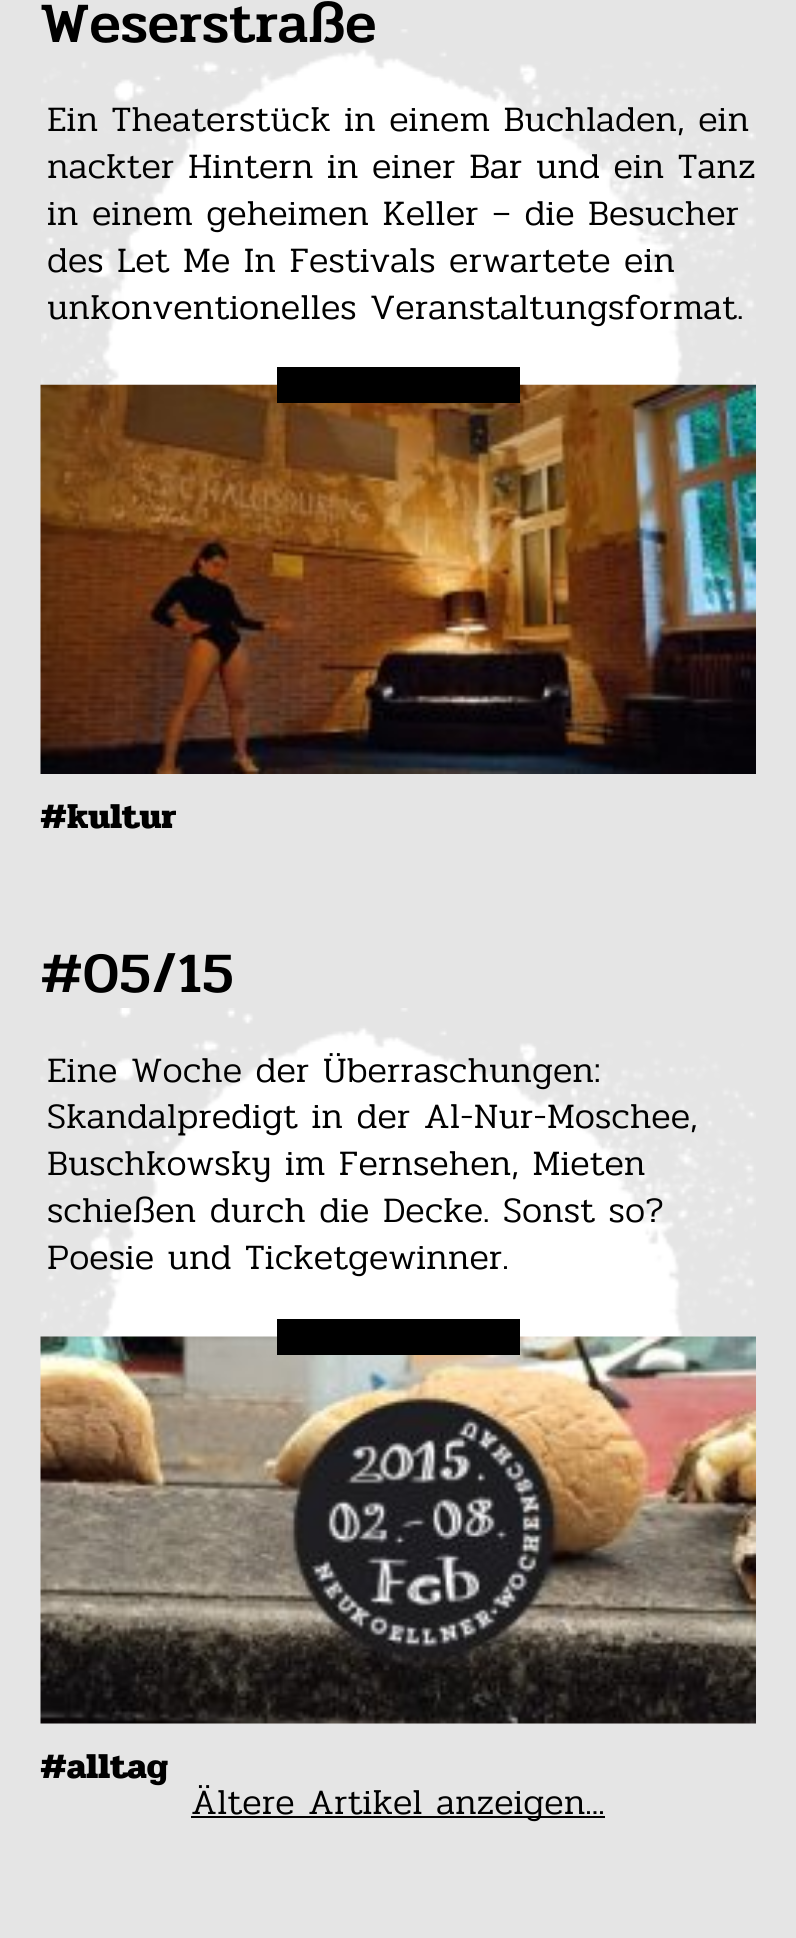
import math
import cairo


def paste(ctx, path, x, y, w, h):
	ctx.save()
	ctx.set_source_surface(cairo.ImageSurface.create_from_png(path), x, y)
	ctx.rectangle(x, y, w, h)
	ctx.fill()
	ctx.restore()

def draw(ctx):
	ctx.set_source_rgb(0.898, 0.898, 0.898)
	ctx.paint()
	paste(ctx, 'media/1.png', 41, 29, 715, 356)
	ctx.select_font_face('Pridi Medium')
	ctx.set_font_size(57.5)
	ctx.set_source_rgb(0, 0, 0)
	ctx.move_to(40, 42)
	ctx.show_text('Weserstraße')
	ctx.select_font_face('Pridi Light')
	ctx.set_font_size(36)
	for x, y, s in [
		(47, 131, 'Ein Theaterstück in einem Buchladen, ein'),
		(47, 178, 'nackter Hintern in einer Bar und ein Tanz'),
		(47, 225, 'in einem geheimen Keller – die Besucher'),
		(47, 272, 'des Let Me In Festivals erwartete ein'),
		(47, 319, 'unkonventionelles Veranstaltungsformat.'),
	]:
		ctx.move_to(x, y)
		ctx.show_text(s)
	paste(ctx, 'media/2.png', 40, 384, 716, 390)
	ctx.rectangle(277, 367, 243, 36)
	ctx.fill()
	ctx.select_font_face('Pridi', cairo.FONT_SLANT_NORMAL, cairo.FONT_WEIGHT_BOLD)
	ctx.move_to(40, 828)
	ctx.show_text('#kultur')
	paste(ctx, 'media/3.png', 40, 1008, 716, 653)
	ctx.select_font_face('Pridi Medium')
	ctx.set_font_size(57.5)
	ctx.move_to(40, 992)
	ctx.show_text('#05/15')
	ctx.select_font_face('Pridi Light')
	ctx.set_font_size(36)
	for x, y, s in [
		(47, 1082, 'Eine Woche der Überraschungen:'),
		(47, 1128, 'Skandalpredigt in der Al-Nur-Moschee,'),
		(47, 1175, 'Buschkowsky im Fernsehen, Mieten'),
		(47, 1222, 'schießen durch die Decke. Sonst so?'),
		(47, 1269, 'Poesie und Ticketgewinner.'),
	]:
		ctx.move_to(x, y)
		ctx.show_text(s)
	paste(ctx, 'media/4.png', 40, 1336, 716, 388)
	ctx.rectangle(277, 1319, 243, 36)
	ctx.fill()
	ctx.select_font_face('Pridi', cairo.FONT_SLANT_NORMAL, cairo.FONT_WEIGHT_BOLD)
	ctx.move_to(40, 1778)
	ctx.show_text('#alltag')
	ctx.rectangle(191, 1816, 414, 2)
	ctx.fill()
	ctx.select_font_face('Pridi Light')
	ctx.move_to(191, 1814)
	ctx.show_text('Ältere Artikel anzeigen...')


surface = cairo.ImageSurface(cairo.FORMAT_RGB24, 796, 1938)
ctx = cairo.Context(surface)
options = cairo.FontOptions()
options.set_hint_metrics(cairo.HINT_METRICS_OFF)
options.set_hint_style(cairo.HINT_STYLE_NONE)
ctx.set_font_options(options)
ctx.set_miter_limit(4)
draw(ctx)
surface.write_to_png('image.png')
